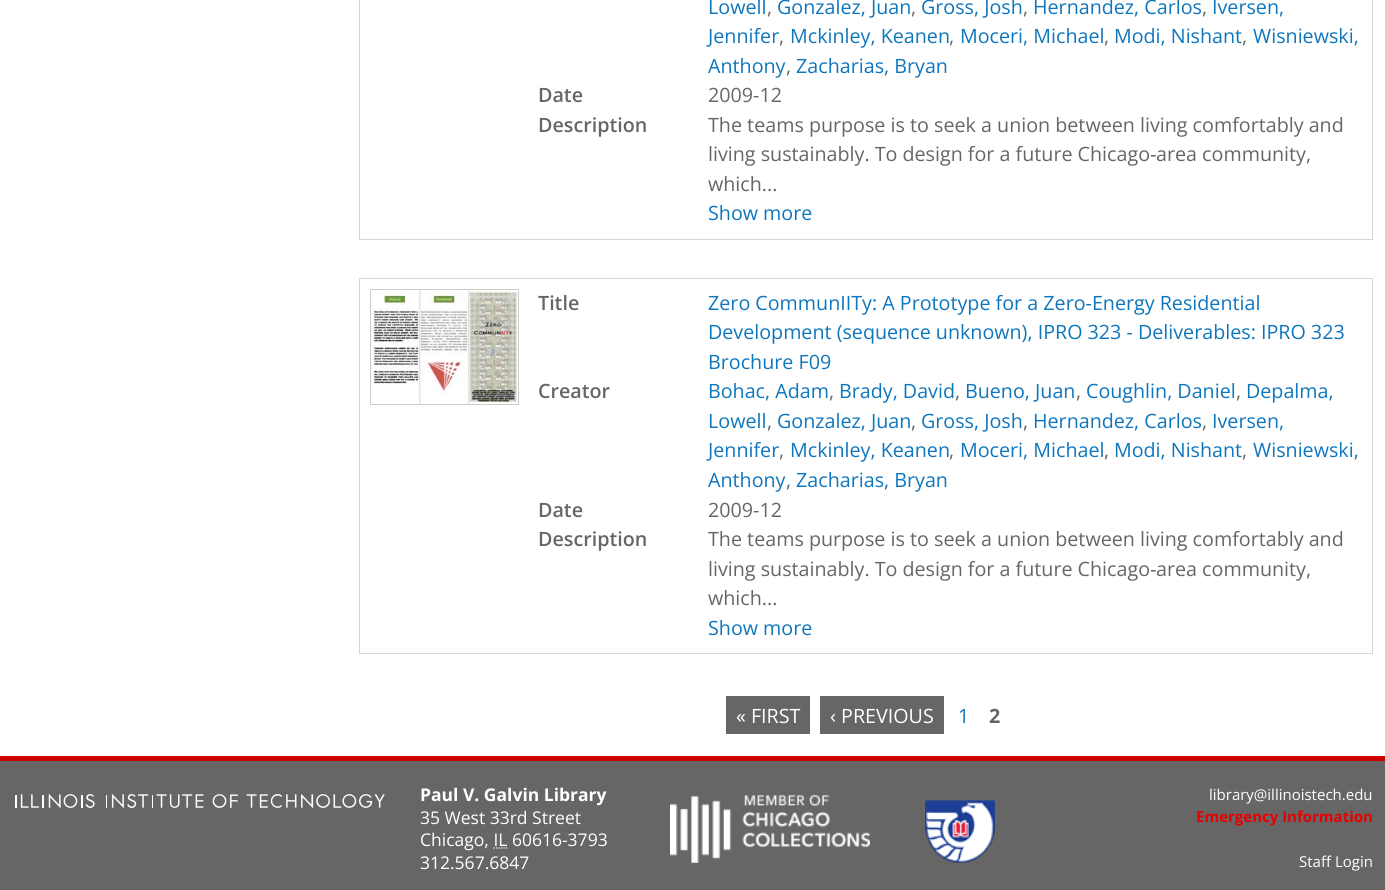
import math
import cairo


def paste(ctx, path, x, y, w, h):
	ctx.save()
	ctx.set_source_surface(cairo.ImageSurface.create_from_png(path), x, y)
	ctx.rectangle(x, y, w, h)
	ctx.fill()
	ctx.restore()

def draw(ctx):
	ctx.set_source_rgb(1, 1, 1)
	ctx.paint()
	ctx.rectangle(359.5, -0.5, 1013, 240)
	ctx.set_source_rgb(0.839, 0.839, 0.839)
	ctx.set_line_width(1)
	ctx.stroke()
	ctx.select_font_face('Open Sans')
	ctx.set_font_size(19.7)
	ctx.set_source_rgb(0.055, 0.463, 0.741)
	ctx.move_to(708, 14)
	ctx.show_text('Lowell')
	ctx.set_source_rgb(0.4, 0.4, 0.4)
	ctx.move_to(767, 14)
	ctx.show_text(',')
	ctx.set_source_rgb(0.055, 0.463, 0.741)
	ctx.move_to(777, 14)
	ctx.show_text('Gonzalez, Juan')
	ctx.set_source_rgb(0.4, 0.4, 0.4)
	ctx.move_to(911, 14)
	ctx.show_text(',')
	ctx.set_source_rgb(0.055, 0.463, 0.741)
	ctx.move_to(921, 14)
	ctx.show_text('Gross, Josh')
	ctx.set_source_rgb(0.4, 0.4, 0.4)
	ctx.move_to(1023, 14)
	ctx.show_text(',')
	ctx.set_source_rgb(0.055, 0.463, 0.741)
	ctx.move_to(1033, 14)
	ctx.show_text('Hernandez, Carlos')
	ctx.set_source_rgb(0.4, 0.4, 0.4)
	ctx.move_to(1202, 14)
	ctx.show_text(',')
	ctx.set_source_rgb(0.055, 0.463, 0.741)
	ctx.move_to(1212, 14)
	ctx.show_text('Iversen,')
	ctx.move_to(708, 43)
	ctx.show_text('Jennifer')
	ctx.set_source_rgb(0.4, 0.4, 0.4)
	ctx.move_to(779, 43)
	ctx.show_text(',')
	ctx.set_source_rgb(0.055, 0.463, 0.741)
	ctx.move_to(790, 43)
	ctx.show_text('Mckinley, Keanen')
	ctx.set_source_rgb(0.4, 0.4, 0.4)
	ctx.move_to(949, 43)
	ctx.show_text(',')
	ctx.set_source_rgb(0.055, 0.463, 0.741)
	ctx.move_to(960, 43)
	ctx.show_text('Moceri, Michael')
	ctx.set_source_rgb(0.4, 0.4, 0.4)
	ctx.move_to(1104, 43)
	ctx.show_text(',')
	ctx.set_source_rgb(0.055, 0.463, 0.741)
	ctx.move_to(1114, 43)
	ctx.show_text('Modi, Nishant')
	ctx.set_source_rgb(0.4, 0.4, 0.4)
	ctx.move_to(1242, 43)
	ctx.show_text(',')
	ctx.set_source_rgb(0.055, 0.463, 0.741)
	ctx.move_to(1253, 43)
	ctx.show_text('Wisniewski,')
	ctx.move_to(708, 73)
	ctx.show_text('Anthony')
	ctx.set_source_rgb(0.4, 0.4, 0.4)
	ctx.move_to(786, 73)
	ctx.show_text(',')
	ctx.set_source_rgb(0.055, 0.463, 0.741)
	ctx.move_to(796, 73)
	ctx.show_text('Zacharias, Bryan')
	ctx.select_font_face('Open Sans SemiBold')
	ctx.set_source_rgb(0.4, 0.4, 0.4)
	ctx.move_to(538, 102)
	ctx.show_text('Date')
	ctx.select_font_face('Open Sans')
	ctx.move_to(708, 102)
	ctx.show_text('2009-12')
	ctx.select_font_face('Open Sans SemiBold')
	ctx.move_to(538, 132)
	ctx.show_text('Description')
	ctx.select_font_face('Open Sans')
	ctx.move_to(708, 132)
	ctx.show_text('The teams purpose is to seek a union between living comfortably and')
	ctx.move_to(708, 161)
	ctx.show_text('living sustainably. To design for a future Chicago')
	ctx.select_font_face('Liberation Sans')
	ctx.move_to(1150, 161)
	ctx.show_text('‐')
	ctx.select_font_face('Open Sans')
	ctx.move_to(1156, 161)
	ctx.show_text('area community,')
	ctx.move_to(708, 191)
	ctx.show_text('which...')
	ctx.set_source_rgb(0.055, 0.463, 0.741)
	ctx.move_to(708, 220)
	ctx.show_text('Show more')
	ctx.rectangle(359.5, 278.5, 1013, 375)
	ctx.set_source_rgb(0.839, 0.839, 0.839)
	ctx.stroke()
	ctx.rectangle(370.5, 289.5, 148, 115)
	ctx.set_source_rgb(0.8, 0.8, 0.8)
	ctx.stroke()
	paste(ctx, 'media/1.png', 371, 290, 147, 114)
	ctx.select_font_face('Open Sans SemiBold')
	ctx.set_source_rgb(0.4, 0.4, 0.4)
	ctx.move_to(538, 310)
	ctx.show_text('Title')
	ctx.select_font_face('Open Sans')
	ctx.set_source_rgb(0.055, 0.463, 0.741)
	for x, y, s in [
		(708, 310, 'Zero CommunIITy: A Prototype for a Zero-Energy Residential'),
		(708, 339, 'Development (sequence unknown), IPRO 323 - Deliverables: IPRO 323'),
		(708, 369, 'Brochure F09'),
	]:
		ctx.move_to(x, y)
		ctx.show_text(s)
	ctx.select_font_face('Open Sans SemiBold')
	ctx.set_source_rgb(0.4, 0.4, 0.4)
	ctx.move_to(538, 398)
	ctx.show_text('Creator')
	ctx.select_font_face('Open Sans')
	ctx.set_source_rgb(0.055, 0.463, 0.741)
	ctx.move_to(708, 398)
	ctx.show_text('Bohac, Adam')
	ctx.set_source_rgb(0.4, 0.4, 0.4)
	ctx.move_to(829, 398)
	ctx.show_text(',')
	ctx.set_source_rgb(0.055, 0.463, 0.741)
	ctx.move_to(839, 398)
	ctx.show_text('Brady, David')
	ctx.set_source_rgb(0.4, 0.4, 0.4)
	ctx.move_to(955, 398)
	ctx.show_text(',')
	ctx.set_source_rgb(0.055, 0.463, 0.741)
	ctx.move_to(965, 398)
	ctx.show_text('Bueno, Juan')
	ctx.set_source_rgb(0.4, 0.4, 0.4)
	ctx.move_to(1076, 398)
	ctx.show_text(',')
	ctx.set_source_rgb(0.055, 0.463, 0.741)
	ctx.move_to(1086, 398)
	ctx.show_text('Coughlin, Daniel')
	ctx.set_source_rgb(0.4, 0.4, 0.4)
	ctx.move_to(1236, 398)
	ctx.show_text(',')
	ctx.set_source_rgb(0.055, 0.463, 0.741)
	ctx.move_to(1246, 398)
	ctx.show_text('Depalma,')
	ctx.move_to(708, 428)
	ctx.show_text('Lowell')
	ctx.set_source_rgb(0.4, 0.4, 0.4)
	ctx.move_to(767, 428)
	ctx.show_text(',')
	ctx.set_source_rgb(0.055, 0.463, 0.741)
	ctx.move_to(777, 428)
	ctx.show_text('Gonzalez, Juan')
	ctx.set_source_rgb(0.4, 0.4, 0.4)
	ctx.move_to(911, 428)
	ctx.show_text(',')
	ctx.set_source_rgb(0.055, 0.463, 0.741)
	ctx.move_to(921, 428)
	ctx.show_text('Gross, Josh')
	ctx.set_source_rgb(0.4, 0.4, 0.4)
	ctx.move_to(1023, 428)
	ctx.show_text(',')
	ctx.set_source_rgb(0.055, 0.463, 0.741)
	ctx.move_to(1033, 428)
	ctx.show_text('Hernandez, Carlos')
	ctx.set_source_rgb(0.4, 0.4, 0.4)
	ctx.move_to(1202, 428)
	ctx.show_text(',')
	ctx.set_source_rgb(0.055, 0.463, 0.741)
	ctx.move_to(1212, 428)
	ctx.show_text('Iversen,')
	ctx.move_to(708, 457)
	ctx.show_text('Jennifer')
	ctx.set_source_rgb(0.4, 0.4, 0.4)
	ctx.move_to(779, 457)
	ctx.show_text(',')
	ctx.set_source_rgb(0.055, 0.463, 0.741)
	ctx.move_to(790, 457)
	ctx.show_text('Mckinley, Keanen')
	ctx.set_source_rgb(0.4, 0.4, 0.4)
	ctx.move_to(949, 457)
	ctx.show_text(',')
	ctx.set_source_rgb(0.055, 0.463, 0.741)
	ctx.move_to(960, 457)
	ctx.show_text('Moceri, Michael')
	ctx.set_source_rgb(0.4, 0.4, 0.4)
	ctx.move_to(1104, 457)
	ctx.show_text(',')
	ctx.set_source_rgb(0.055, 0.463, 0.741)
	ctx.move_to(1114, 457)
	ctx.show_text('Modi, Nishant')
	ctx.set_source_rgb(0.4, 0.4, 0.4)
	ctx.move_to(1242, 457)
	ctx.show_text(',')
	ctx.set_source_rgb(0.055, 0.463, 0.741)
	ctx.move_to(1253, 457)
	ctx.show_text('Wisniewski,')
	ctx.move_to(708, 487)
	ctx.show_text('Anthony')
	ctx.set_source_rgb(0.4, 0.4, 0.4)
	ctx.move_to(786, 487)
	ctx.show_text(',')
	ctx.set_source_rgb(0.055, 0.463, 0.741)
	ctx.move_to(796, 487)
	ctx.show_text('Zacharias, Bryan')
	ctx.select_font_face('Open Sans SemiBold')
	ctx.set_source_rgb(0.4, 0.4, 0.4)
	ctx.move_to(538, 517)
	ctx.show_text('Date')
	ctx.select_font_face('Open Sans')
	ctx.move_to(708, 517)
	ctx.show_text('2009-12')
	ctx.select_font_face('Open Sans SemiBold')
	ctx.move_to(538, 546)
	ctx.show_text('Description')
	ctx.select_font_face('Open Sans')
	ctx.move_to(708, 546)
	ctx.show_text('The teams purpose is to seek a union between living comfortably and')
	ctx.move_to(708, 576)
	ctx.show_text('living sustainably. To design for a future Chicago')
	ctx.select_font_face('Liberation Sans')
	ctx.move_to(1150, 576)
	ctx.show_text('‐')
	ctx.select_font_face('Open Sans')
	ctx.move_to(1156, 576)
	ctx.show_text('area community,')
	ctx.move_to(708, 605)
	ctx.show_text('which...')
	ctx.set_source_rgb(0.055, 0.463, 0.741)
	ctx.move_to(708, 635)
	ctx.show_text('Show more')
	ctx.set_source_rgb(0.4, 0.4, 0.4)
	ctx.rectangle(726, 696, 84, 38)
	ctx.fill()
	ctx.set_source_rgb(1, 1, 1)
	ctx.move_to(736, 723)
	ctx.show_text('« FIRST')
	ctx.set_source_rgb(0.4, 0.4, 0.4)
	ctx.rectangle(820, 696, 124, 38)
	ctx.fill()
	ctx.set_source_rgb(1, 1, 1)
	ctx.move_to(830, 723)
	ctx.show_text('‹ PREVIOUS')
	ctx.set_source_rgb(0.055, 0.463, 0.741)
	ctx.move_to(958, 723)
	ctx.show_text('1')
	ctx.select_font_face('Open Sans', cairo.FONT_SLANT_NORMAL, cairo.FONT_WEIGHT_BOLD)
	ctx.set_source_rgb(0.4, 0.4, 0.4)
	ctx.move_to(989, 723)
	ctx.show_text('2')
	ctx.rectangle(0, 761, 1385, 129)
	ctx.fill()
	ctx.set_source_rgb(0.8, 0, 0)
	ctx.rectangle(0, 756, 1385, 5)
	ctx.fill()
	paste(ctx, 'media/2.png', 15, 793, 370, 16)
	ctx.set_font_size(17.5)
	ctx.set_source_rgb(1, 1, 1)
	ctx.move_to(420, 801)
	ctx.show_text('Paul V. Galvin Library')
	ctx.select_font_face('Open Sans')
	ctx.move_to(420, 824)
	ctx.show_text('35 West 33rd Street')
	ctx.move_to(420, 846)
	ctx.show_text('Chicago, IL 60616-3793')
	ctx.new_path()
	ctx.move_to(493.5, 848)
	ctx.line_to(507.5, 848)
	ctx.set_line_width(1.2)
	ctx.set_dash([1.25, 1.25])
	ctx.stroke()
	ctx.move_to(420, 869)
	ctx.show_text('312.567.6847')
	paste(ctx, 'media/3.png', 670, 795, 200, 68)
	paste(ctx, 'media/4.png', 925, 800, 70, 63)
	ctx.set_font_size(15)
	ctx.move_to(1209, 800)
	ctx.show_text('library@illinoistech.edu')
	ctx.select_font_face('Open Sans', cairo.FONT_SLANT_NORMAL, cairo.FONT_WEIGHT_BOLD)
	ctx.set_source_rgb(0.91, 0, 0)
	ctx.move_to(1196, 822)
	ctx.show_text('Emergency Information')
	ctx.select_font_face('Open Sans')
	ctx.set_source_rgb(1, 1, 1)
	ctx.move_to(1299, 867)
	ctx.show_text('Staff Login')


surface = cairo.ImageSurface(cairo.FORMAT_RGB24, 1385, 890)
ctx = cairo.Context(surface)
options = cairo.FontOptions()
options.set_hint_metrics(cairo.HINT_METRICS_OFF)
options.set_hint_style(cairo.HINT_STYLE_NONE)
ctx.set_font_options(options)
ctx.set_miter_limit(4)
draw(ctx)
surface.write_to_png('image.png')
